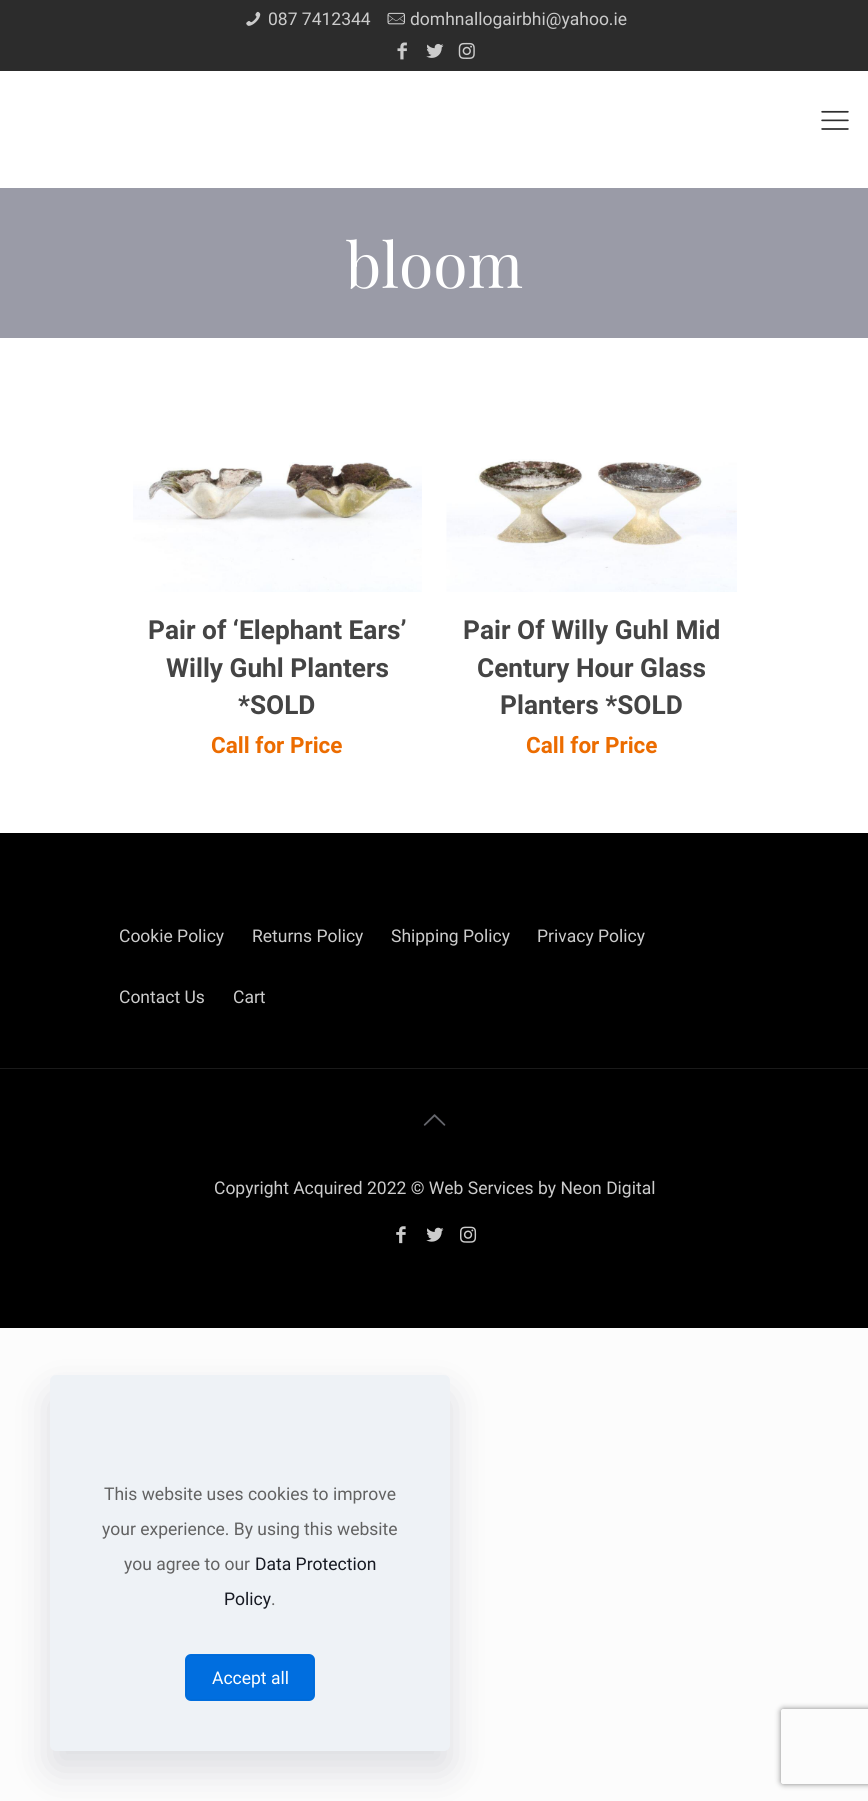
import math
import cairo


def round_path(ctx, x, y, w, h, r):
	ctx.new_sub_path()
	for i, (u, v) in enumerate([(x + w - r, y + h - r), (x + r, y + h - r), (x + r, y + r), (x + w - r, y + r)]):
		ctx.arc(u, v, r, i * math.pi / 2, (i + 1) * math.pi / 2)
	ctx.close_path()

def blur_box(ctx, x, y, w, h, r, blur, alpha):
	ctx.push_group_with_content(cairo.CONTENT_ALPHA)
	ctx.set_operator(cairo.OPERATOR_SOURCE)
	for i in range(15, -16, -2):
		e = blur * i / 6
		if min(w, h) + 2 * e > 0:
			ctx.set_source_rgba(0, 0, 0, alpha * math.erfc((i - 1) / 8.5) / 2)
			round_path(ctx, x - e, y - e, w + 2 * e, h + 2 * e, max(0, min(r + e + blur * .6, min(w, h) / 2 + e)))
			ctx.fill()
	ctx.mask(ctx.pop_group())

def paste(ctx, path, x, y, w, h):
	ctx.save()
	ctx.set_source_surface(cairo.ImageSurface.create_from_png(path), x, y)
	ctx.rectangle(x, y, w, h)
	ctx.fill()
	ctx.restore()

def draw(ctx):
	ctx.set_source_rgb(0.988, 0.988, 0.988)
	ctx.paint()
	ctx.set_source_rgb(1, 1, 1)
	ctx.rectangle(0, 71, 868, 762)
	ctx.fill()
	ctx.set_source_rgb(0.173, 0.173, 0.173)
	ctx.rectangle(0, 0, 868, 71)
	ctx.fill()
	paste(ctx, 'media/1.png', 246, 11, 15, 15)
	ctx.select_font_face('Roboto')
	ctx.set_font_size(17.5)
	ctx.set_source_rgb(0.8, 0.8, 0.8)
	ctx.move_to(268, 25)
	ctx.show_text('087 7412344')
	paste(ctx, 'media/2.png', 387, 12, 18, 13)
	ctx.move_to(410, 25)
	ctx.show_text('domhnallogairbhi@yahoo.ie')
	paste(ctx, 'media/3.png', 397, 42, 10, 18)
	paste(ctx, 'media/4.png', 426, 43, 18, 15)
	paste(ctx, 'media/5.png', 458, 42, 17, 17)
	paste(ctx, 'media/6.png', 821, 110, 28, 20)
	ctx.set_source_rgb(0.604, 0.608, 0.655)
	ctx.rectangle(0, 188, 868, 150)
	ctx.fill()
	ctx.select_font_face('Playfair Display')
	ctx.set_font_size(62.5)
	ctx.set_source_rgb(1, 1, 1)
	ctx.move_to(346, 288)
	ctx.show_text('bloom')
	paste(ctx, 'media/7.png', 133, 462, 289, 130)
	ctx.select_font_face('Roboto', cairo.FONT_SLANT_NORMAL, cairo.FONT_WEIGHT_BOLD)
	ctx.set_font_size(26.25)
	ctx.set_source_rgb(0.267, 0.267, 0.267)
	for x, y, s in [
		(148, 639, 'Pair of ‘Elephant Ears’'),
		(166, 677, 'Willy Guhl Planters'),
		(238, 714, '*SOLD'),
	]:
		ctx.move_to(x, y)
		ctx.show_text(s)
	ctx.set_font_size(22.5)
	ctx.set_source_rgb(0.922, 0.424, 0)
	ctx.move_to(211, 753)
	ctx.show_text('Call for Price')
	paste(ctx, 'media/8.png', 446, 459, 291, 133)
	ctx.set_font_size(26.25)
	ctx.set_source_rgb(0.267, 0.267, 0.267)
	for x, y, s in [
		(463, 639, 'Pair Of Willy Guhl Mid'),
		(477, 677, 'Century Hour Glass'),
		(500, 714, 'Planters *SOLD'),
	]:
		ctx.move_to(x, y)
		ctx.show_text(s)
	ctx.set_font_size(22.5)
	ctx.set_source_rgb(0.922, 0.424, 0)
	ctx.move_to(526, 753)
	ctx.show_text('Call for Price')
	ctx.set_source_rgb(0, 0, 0)
	ctx.rectangle(0, 833, 868, 495)
	ctx.fill()
	ctx.select_font_face('Roboto')
	ctx.set_font_size(17.5)
	ctx.set_source_rgb(0.8, 0.8, 0.8)
	for x, y, s in [
		(119, 942, 'Cookie Policy'),
		(252, 942, 'Returns Policy'),
		(391, 942, 'Shipping Policy'),
		(537, 942, 'Privacy Policy'),
		(119, 1003, 'Contact Us'),
		(233, 1003, 'Cart'),
	]:
		ctx.move_to(x, y)
		ctx.show_text(s)
	ctx.set_source_rgb(0.102, 0.102, 0.102)
	ctx.rectangle(0, 1068, 868, 1)
	ctx.fill()
	paste(ctx, 'media/9.png', 423, 1114, 23, 12)
	ctx.set_source_rgb(0.8, 0.8, 0.8)
	ctx.move_to(214, 1194)
	ctx.show_text('Copyright Acquired 2022 © Web Services by Neon Digital')
	paste(ctx, 'media/10.png', 396, 1226, 10, 18)
	paste(ctx, 'media/11.png', 426, 1227, 18, 15)
	paste(ctx, 'media/12.png', 460, 1226, 17, 17)
	ctx.set_source_rgb(0.004, 0.027, 0.153)
	blur_box(ctx, 50, 1394, 400, 376, 6, 19, 0.13)
	ctx.set_source_rgb(0.933, 0.949, 0.961)
	round_path(ctx, 50, 1375, 400, 376, 6)
	ctx.fill()
	ctx.set_source_rgb(0.384, 0.384, 0.384)
	for x, y, s in [
		(104, 1500, 'This website uses cookies to improve'),
		(102, 1535, 'your experience. By using this website'),
		(124, 1570, 'you agree to our'),
	]:
		ctx.move_to(x, y)
		ctx.show_text(s)
	ctx.set_source_rgb(0.086, 0.098, 0.133)
	ctx.move_to(255, 1570)
	ctx.show_text('Data Protection')
	ctx.move_to(224, 1605)
	ctx.show_text('Policy')
	ctx.set_source_rgb(0.384, 0.384, 0.384)
	ctx.move_to(271, 1605)
	ctx.show_text('.')
	ctx.set_source_rgb(0, 0.431, 0.875)
	round_path(ctx, 185, 1654, 130, 47, 6)
	ctx.fill()
	round_path(ctx, 186.5, 1655.5, 127, 44, 4.5)
	ctx.set_source_rgb(0, 0.42, 0.847)
	ctx.set_line_width(1)
	ctx.stroke()
	ctx.set_source_rgb(1, 1, 1)
	ctx.move_to(212, 1684)
	ctx.show_text('Accept all')
	ctx.save()
	ctx.set_fill_rule(cairo.FILL_RULE_EVEN_ODD)
	ctx.new_path()
	ctx.move_to(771, 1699)
	ctx.line_to(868, 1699)
	ctx.line_to(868, 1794)
	ctx.line_to(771, 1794)
	ctx.close_path()
	ctx.move_to(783.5, 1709)
	ctx.line_to(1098.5, 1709)
	ctx.curve_to(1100, 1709, 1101, 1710, 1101, 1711.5)
	ctx.line_to(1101, 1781.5)
	ctx.curve_to(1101, 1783, 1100, 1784, 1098.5, 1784)
	ctx.line_to(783.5, 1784)
	ctx.curve_to(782, 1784, 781, 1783, 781, 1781.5)
	ctx.line_to(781, 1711.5)
	ctx.curve_to(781, 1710, 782, 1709, 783.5, 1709)
	ctx.close_path()
	ctx.clip()
	ctx.set_source_rgb(0.502, 0.502, 0.502)
	blur_box(ctx, 781, 1709, 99, 75, 2.5, 3, 1)
	ctx.restore()


surface = cairo.ImageSurface(cairo.FORMAT_RGB24, 868, 1801)
ctx = cairo.Context(surface)
options = cairo.FontOptions()
options.set_hint_metrics(cairo.HINT_METRICS_OFF)
options.set_hint_style(cairo.HINT_STYLE_NONE)
ctx.set_font_options(options)
ctx.set_miter_limit(4)
draw(ctx)
surface.write_to_png('image.png')
